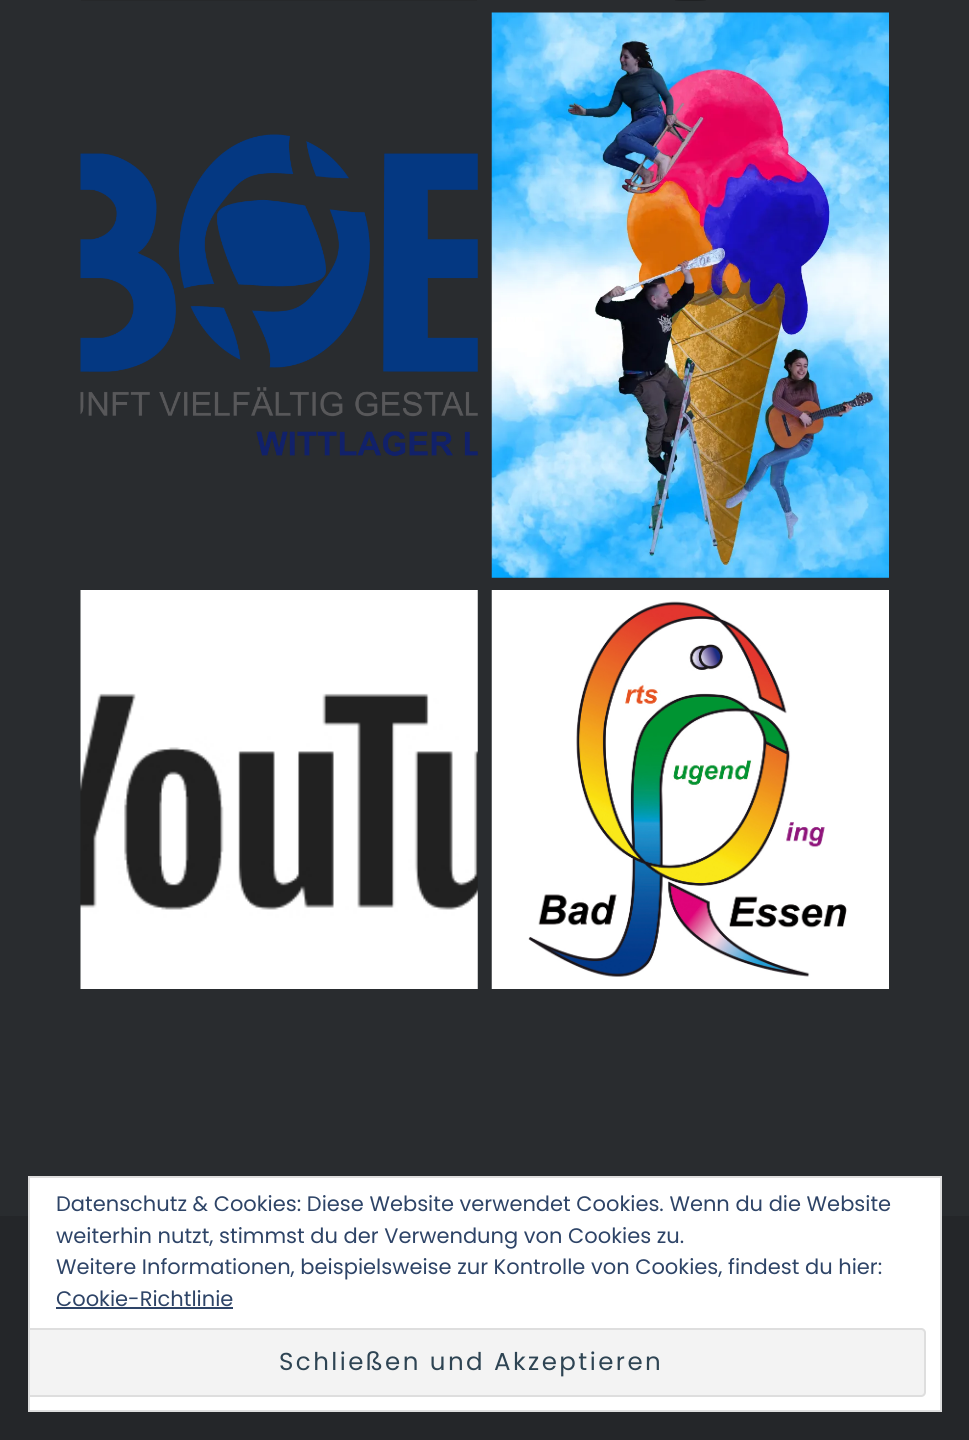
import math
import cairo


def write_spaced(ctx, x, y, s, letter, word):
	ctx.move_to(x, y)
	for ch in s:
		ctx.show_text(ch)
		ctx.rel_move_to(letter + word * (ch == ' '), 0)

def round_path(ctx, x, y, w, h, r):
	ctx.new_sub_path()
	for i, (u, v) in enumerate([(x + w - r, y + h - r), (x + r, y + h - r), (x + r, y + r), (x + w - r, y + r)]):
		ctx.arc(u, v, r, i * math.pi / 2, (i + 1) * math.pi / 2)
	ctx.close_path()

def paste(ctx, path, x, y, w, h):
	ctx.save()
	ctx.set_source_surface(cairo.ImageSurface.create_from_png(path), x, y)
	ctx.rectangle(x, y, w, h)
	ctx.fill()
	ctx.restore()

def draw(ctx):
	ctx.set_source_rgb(0.161, 0.173, 0.184)
	ctx.paint()
	ctx.set_source_rgb(0.149, 0.157, 0.165)
	ctx.rectangle(81, 0, 396, 1)
	ctx.fill()
	paste(ctx, 'media/1.png', 675, 0, 31, 1)
	paste(ctx, 'media/2.png', 80, 134, 398, 322)
	paste(ctx, 'media/3.png', 491, 12, 398, 566)
	paste(ctx, 'media/4.png', 80, 590, 398, 399)
	paste(ctx, 'media/5.png', 491, 590, 398, 399)
	ctx.set_source_rgb(0.141, 0.149, 0.161)
	ctx.rectangle(0, 1216, 969, 224)
	ctx.fill()
	ctx.set_source_rgb(1, 1, 1)
	ctx.rectangle(29, 1177, 912, 234)
	ctx.fill_preserve()
	ctx.set_source_rgb(0.871, 0.871, 0.871)
	ctx.stroke()
	ctx.select_font_face('Poppins')
	ctx.set_font_size(21)
	ctx.set_source_rgb(0.18, 0.267, 0.404)
	for x, y, s in [
		(56, 1211, 'Datenschutz & Cookies: Diese Website verwendet Cookies. Wenn du die Website'),
		(56, 1243, 'weiterhin nutzt, stimmst du der Verwendung von Cookies zu.'),
		(56, 1274, 'Weitere Informationen, beispielsweise zur Kontrolle von Cookies, findest du hier:'),
		(56, 1306, 'Cookie-Richtlinie'),
	]:
		ctx.move_to(x, y)
		ctx.show_text(s)
	ctx.rectangle(56, 1307, 177, 2)
	ctx.fill()
	ctx.set_source_rgb(0.953, 0.953, 0.953)
	ctx.new_path()
	ctx.move_to(30, 1328)
	ctx.line_to(921, 1328)
	ctx.curve_to(924, 1328, 926, 1330, 926, 1333)
	ctx.line_to(926, 1392)
	ctx.curve_to(926, 1395, 924, 1397, 921, 1397)
	ctx.line_to(30, 1397)
	ctx.close_path()
	ctx.fill()
	ctx.save()
	ctx.rectangle(30, 1178, 910, 233)
	ctx.clip()
	round_path(ctx, 17, 1329, 908, 67, 4)
	ctx.set_source_rgb(0.871, 0.871, 0.871)
	ctx.stroke()
	ctx.restore()
	ctx.set_font_size(24.5)
	ctx.set_source_rgb(0.18, 0.267, 0.325)
	write_spaced(ctx, 279, 1370, 'Schließen und Akzeptieren', 2.45, 0)


surface = cairo.ImageSurface(cairo.FORMAT_RGB24, 969, 1440)
ctx = cairo.Context(surface)
options = cairo.FontOptions()
options.set_hint_metrics(cairo.HINT_METRICS_OFF)
options.set_hint_style(cairo.HINT_STYLE_NONE)
ctx.set_font_options(options)
ctx.set_miter_limit(4)
draw(ctx)
surface.write_to_png('image.png')
